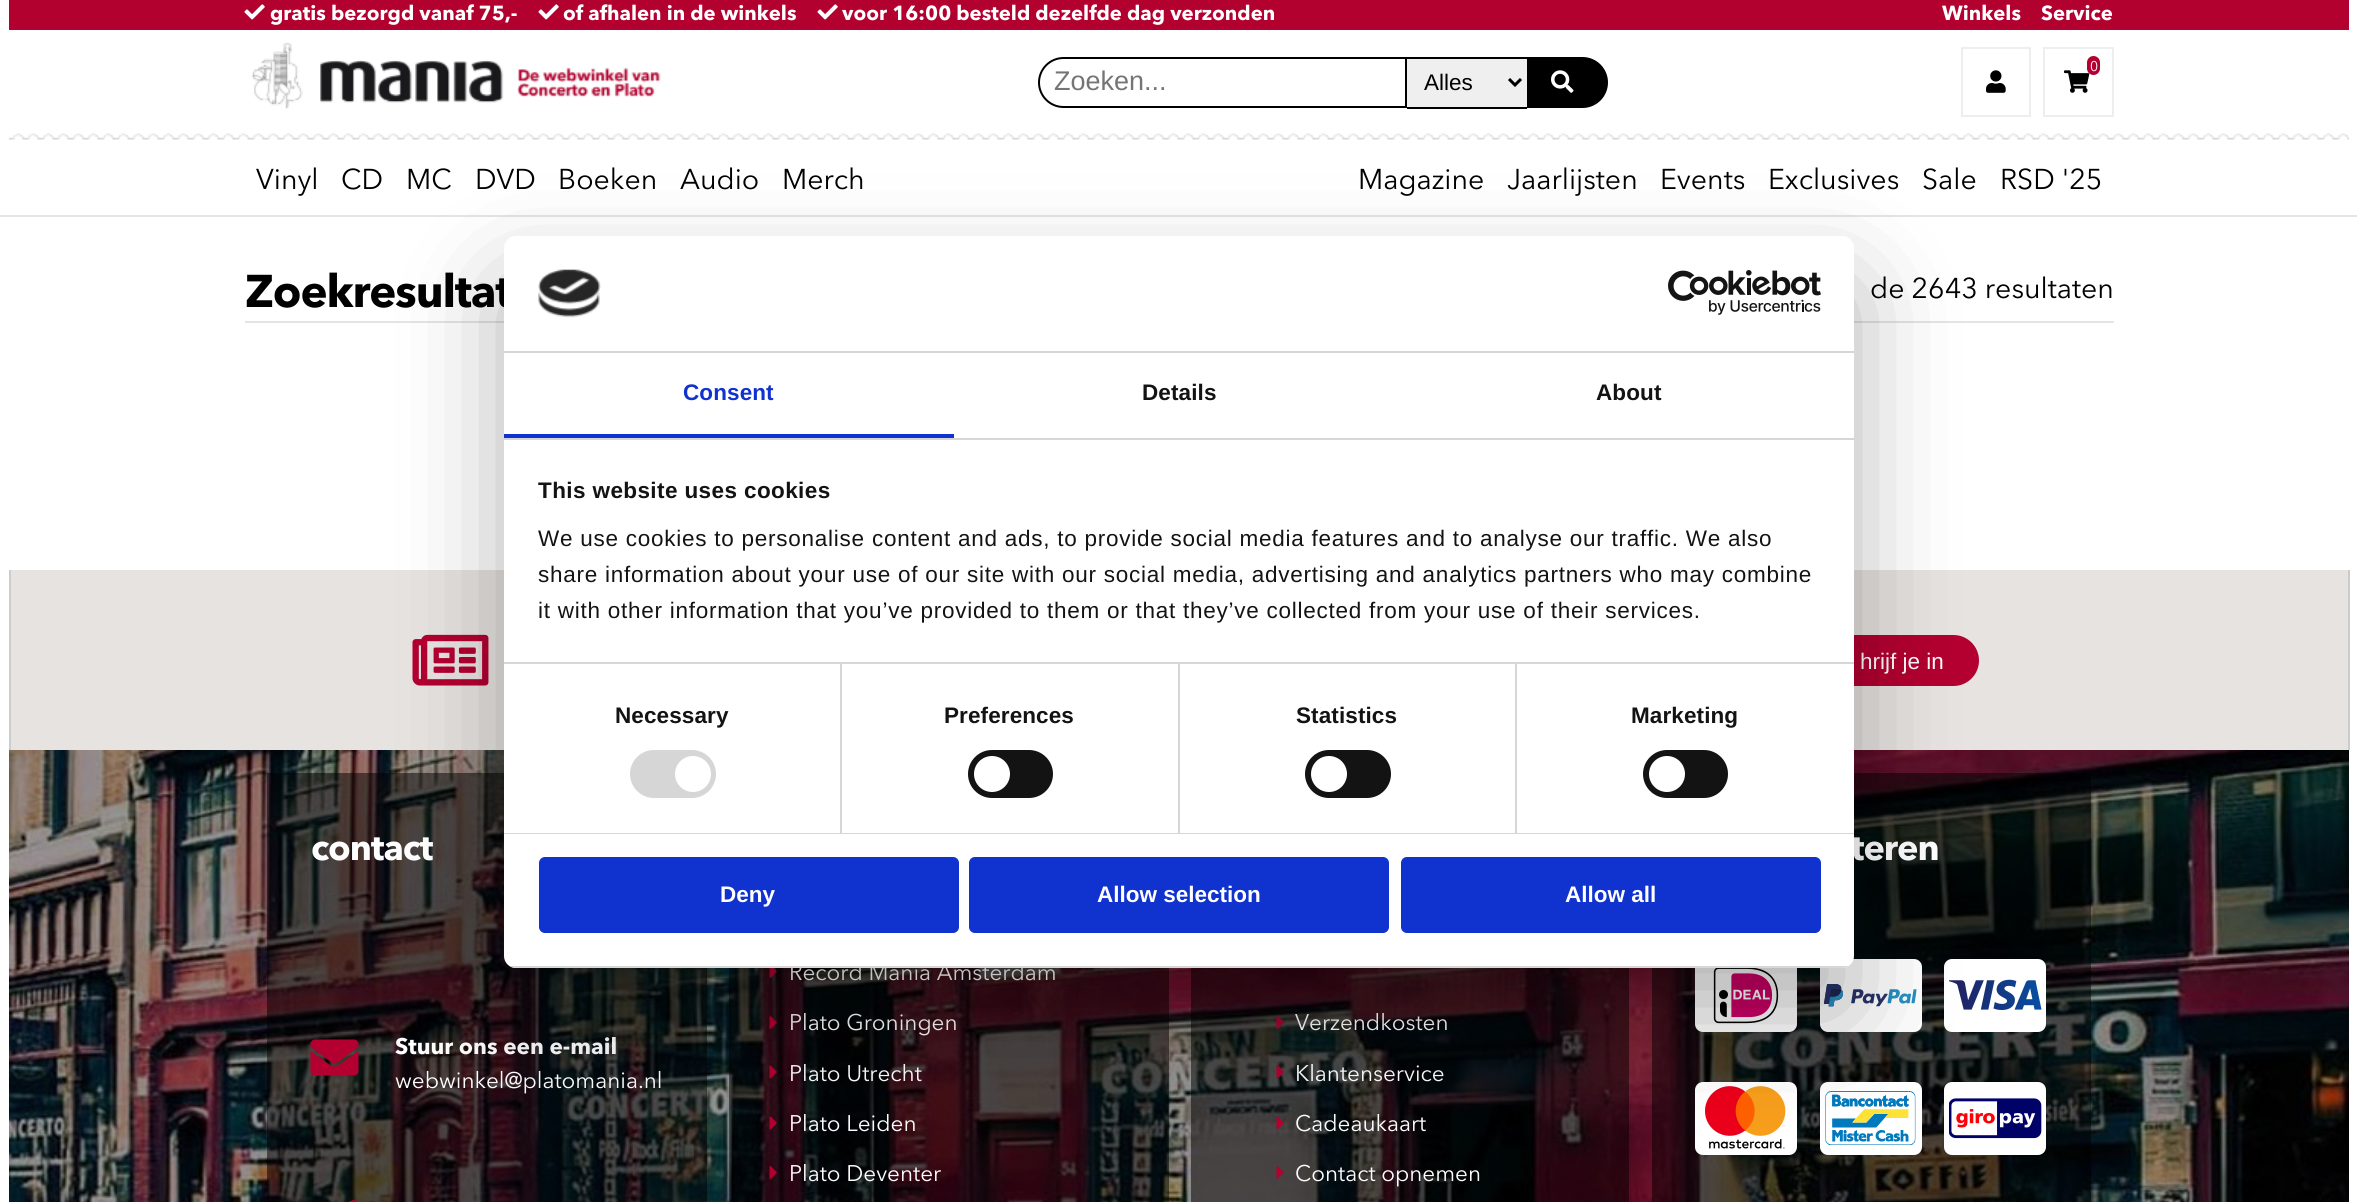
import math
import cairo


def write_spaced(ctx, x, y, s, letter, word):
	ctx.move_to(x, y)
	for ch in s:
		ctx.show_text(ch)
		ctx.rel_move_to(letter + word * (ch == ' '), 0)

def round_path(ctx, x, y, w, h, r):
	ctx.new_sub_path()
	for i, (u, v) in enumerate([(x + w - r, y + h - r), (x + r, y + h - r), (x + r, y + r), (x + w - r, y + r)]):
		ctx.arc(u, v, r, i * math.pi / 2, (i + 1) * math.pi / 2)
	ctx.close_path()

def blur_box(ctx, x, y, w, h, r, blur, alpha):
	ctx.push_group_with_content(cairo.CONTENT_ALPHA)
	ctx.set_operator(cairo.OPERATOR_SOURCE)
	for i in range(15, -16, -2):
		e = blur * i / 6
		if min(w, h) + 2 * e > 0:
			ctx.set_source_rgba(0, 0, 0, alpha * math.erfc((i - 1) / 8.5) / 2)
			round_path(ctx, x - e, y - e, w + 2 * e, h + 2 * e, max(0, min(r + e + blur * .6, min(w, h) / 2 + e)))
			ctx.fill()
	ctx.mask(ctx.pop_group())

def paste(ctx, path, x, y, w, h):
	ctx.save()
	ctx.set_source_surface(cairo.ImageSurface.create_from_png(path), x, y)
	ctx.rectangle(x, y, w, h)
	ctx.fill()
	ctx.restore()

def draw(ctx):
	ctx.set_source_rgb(1, 1, 1)
	ctx.paint()
	ctx.set_source_rgb(0.698, 0, 0.184)
	ctx.rectangle(9, 0, 2340, 30)
	ctx.fill()
	paste(ctx, 'media/1.png', 244, 4, 21, 16)
	ctx.select_font_face('Avenir Next', cairo.FONT_SLANT_NORMAL, cairo.FONT_WEIGHT_BOLD)
	ctx.set_font_size(20.25)
	ctx.set_source_rgb(1, 1, 1)
	ctx.move_to(270, 20)
	ctx.show_text('gratis bezorgd vanaf 75,-')
	paste(ctx, 'media/1.png', 538, 4, 21, 16)
	ctx.move_to(563, 20)
	ctx.show_text('of afhalen in de winkels')
	paste(ctx, 'media/1.png', 817, 4, 21, 16)
	for x, y, s in [
		(842, 20, 'voor 16:00 besteld dezelfde dag verzonden'),
		(1942, 20, 'Winkels'),
		(2041, 20, 'Service'),
	]:
		ctx.move_to(x, y)
		ctx.show_text(s)
	paste(ctx, 'media/2.png', 251, 42, 410, 67)
	ctx.rectangle(1962, 48, 68, 68)
	ctx.set_source_rgb(0.933, 0.933, 0.933)
	ctx.stroke()
	paste(ctx, 'media/3.png', 1986, 70, 20, 23)
	ctx.rectangle(2044, 48, 69, 68)
	ctx.stroke()
	paste(ctx, 'media/4.png', 2064, 70, 26, 23)
	ctx.set_source_rgb(0.702, 0, 0.188)
	round_path(ctx, 2087, 56, 13, 19, 6.5)
	ctx.fill()
	ctx.select_font_face('Avenir Next')
	ctx.set_font_size(14)
	ctx.set_source_rgb(1, 1, 1)
	ctx.move_to(2090, 71)
	ctx.show_text('0')
	ctx.new_path()
	ctx.move_to(1063.5, 58)
	ctx.line_to(1406, 58)
	ctx.line_to(1406, 107)
	ctx.line_to(1063.5, 107)
	ctx.curve_to(1050, 107, 1039, 96, 1039, 82.5)
	ctx.curve_to(1039, 69, 1050, 58, 1063.5, 58)
	ctx.close_path()
	ctx.set_source_rgb(0, 0, 0)
	ctx.stroke()
	ctx.select_font_face('Liberation Sans')
	ctx.set_font_size(27)
	ctx.set_source_rgb(0.459, 0.459, 0.459)
	ctx.move_to(1054, 90)
	ctx.show_text('Zoeken...')
	ctx.set_source_rgb(0.937, 0.937, 0.937)
	ctx.rectangle(1407, 59, 120, 48)
	ctx.fill()
	ctx.set_source_rgb(0, 0, 0)
	ctx.rectangle(1407, 57, 120, 2)
	ctx.rectangle(1407, 107, 120, 2)
	ctx.fill()
	ctx.new_path()
	ctx.move_to(1509, 79)
	ctx.line_to(1515, 85)
	ctx.line_to(1521, 79)
	ctx.set_line_width(3)
	ctx.stroke()
	ctx.set_font_size(22.5)
	ctx.move_to(1424, 90)
	ctx.show_text('Alles')
	ctx.new_path()
	ctx.move_to(1528, 58)
	ctx.line_to(1582.5, 58)
	ctx.curve_to(1596, 58, 1607, 69, 1607, 82.5)
	ctx.curve_to(1607, 96, 1596, 107, 1582.5, 107)
	ctx.line_to(1528, 107)
	ctx.close_path()
	ctx.fill_preserve()
	ctx.set_line_width(2)
	ctx.stroke()
	paste(ctx, 'media/5.png', 1551, 70, 23, 23)
	paste(ctx, 'media/6.png', 9, 133, 2340, 7)
	ctx.select_font_face('Avenir Next')
	ctx.set_font_size(28.5)
	for x, y, s in [
		(256, 189, 'Vinyl'),
		(341, 189, 'CD'),
		(406, 189, 'MC'),
		(475, 189, 'DVD'),
		(558, 189, 'Boeken'),
		(680, 189, 'Audio'),
		(782, 189, 'Merch'),
		(1358, 189, 'Magazine'),
		(1507, 189, 'Jaarlijsten'),
		(1660, 189, 'Events'),
		(1768, 189, 'Exclusives'),
		(1922, 189, 'Sale'),
		(2000, 189, 'RSD \'25'),
	]:
		ctx.move_to(x, y)
		ctx.show_text(s)
	ctx.set_source_rgb(0.906, 0.89, 0.882)
	ctx.rectangle(0, 215, 2357, 2)
	ctx.fill()
	ctx.rectangle(245, 321, 1869, 2)
	ctx.fill()
	ctx.select_font_face('Avenir Next', cairo.FONT_SLANT_NORMAL, cairo.FONT_WEIGHT_BOLD)
	ctx.set_font_size(45.5)
	ctx.set_source_rgb(0, 0, 0)
	write_spaced(ctx, 245, 307, 'Zoekresultat', -1.1, 0)
	ctx.select_font_face('Avenir Next')
	ctx.set_font_size(28.5)
	ctx.move_to(1870, 298)
	ctx.show_text('de 2643 resultaten')
	ctx.set_source_rgb(0.906, 0.89, 0.882)
	ctx.rectangle(11, 570, 2337, 180)
	ctx.fill()
	ctx.set_source_rgb(0.796, 0.8, 0.804)
	ctx.rectangle(2348, 570, 2, 180)
	ctx.rectangle(9, 570, 2, 180)
	ctx.fill()
	paste(ctx, 'media/7.png', 412, 634, 77, 52)
	ctx.set_source_rgb(0.702, 0, 0.188)
	ctx.new_path()
	ctx.move_to(1812, 636)
	ctx.line_to(1953.5, 636)
	ctx.curve_to(1967, 636, 1978, 647, 1978, 660.5)
	ctx.curve_to(1978, 674, 1967, 685, 1953.5, 685)
	ctx.line_to(1812, 685)
	ctx.close_path()
	ctx.fill_preserve()
	ctx.stroke()
	ctx.select_font_face('Liberation Sans')
	ctx.set_font_size(22.5)
	ctx.set_source_rgb(1, 1, 1)
	ctx.move_to(1860, 669)
	ctx.show_text('hrijf je in')
	paste(ctx, 'media/8.png', 9, 750, 2340, 452)
	ctx.set_source_rgba(0, 0, 0, 0.5)
	ctx.rectangle(267, 773, 440, 429)
	ctx.fill()
	ctx.select_font_face('Avenir Next', cairo.FONT_SLANT_NORMAL, cairo.FONT_WEIGHT_BOLD)
	ctx.set_font_size(36)
	ctx.set_source_rgb(1, 1, 1)
	write_spaced(ctx, 311, 860, 'contact', -1, 0)
	paste(ctx, 'media/9.png', 310, 1039, 49, 37)
	ctx.set_font_size(22.5)
	ctx.move_to(395, 1054)
	ctx.show_text('Stuur ons een e-mail')
	ctx.select_font_face('Avenir Next')
	ctx.move_to(395, 1088)
	ctx.show_text('webwinkel@platomania.nl')
	paste(ctx, 'media/10.png', 349, 1200, 9, 2)
	ctx.set_source_rgba(0, 0, 0, 0.5)
	ctx.rectangle(1652, 773, 439, 429)
	ctx.fill()
	ctx.select_font_face('Avenir Next', cairo.FONT_SLANT_NORMAL, cairo.FONT_WEIGHT_BOLD)
	ctx.set_font_size(36)
	ctx.set_source_rgb(1, 1, 1)
	write_spaced(ctx, 1851, 860, 'teren', -1, 0)
	round_path(ctx, 1695, 959, 102, 73, 8)
	ctx.fill()
	paste(ctx, 'media/11.png', 1713, 968, 66, 56)
	round_path(ctx, 1820, 959, 102, 73, 8)
	ctx.fill()
	paste(ctx, 'media/12.png', 1824, 984, 93, 23)
	round_path(ctx, 1944, 959, 102, 73, 8)
	ctx.fill()
	paste(ctx, 'media/13.png', 1949, 979, 93, 31)
	round_path(ctx, 1695, 1082, 102, 73, 8)
	ctx.fill()
	paste(ctx, 'media/14.png', 1705, 1086, 81, 63)
	round_path(ctx, 1820, 1082, 102, 73, 8)
	ctx.fill()
	paste(ctx, 'media/15.png', 1825, 1091, 91, 54)
	round_path(ctx, 1944, 1082, 102, 73, 8)
	ctx.fill()
	paste(ctx, 'media/16.png', 1949, 1098, 93, 41)
	ctx.set_source_rgba(0, 0, 0, 0.5)
	ctx.rectangle(729, 968, 440, 234)
	ctx.fill()
	paste(ctx, 'media/17.png', 769, 968, 8, 10)
	ctx.select_font_face('Avenir Next')
	ctx.set_font_size(22.5)
	ctx.set_source_rgb(1, 1, 1)
	ctx.move_to(789, 980)
	ctx.show_text('Record Mania Amsterdam')
	paste(ctx, 'media/18.png', 769, 1016, 8, 13)
	ctx.move_to(789, 1030)
	ctx.show_text('Plato Groningen')
	paste(ctx, 'media/19.png', 769, 1065, 8, 14)
	ctx.move_to(789, 1081)
	ctx.show_text('Plato Utrecht')
	paste(ctx, 'media/20.png', 769, 1116, 8, 14)
	ctx.move_to(789, 1131)
	ctx.show_text('Plato Leiden')
	paste(ctx, 'media/21.png', 769, 1166, 8, 13)
	ctx.move_to(789, 1181)
	ctx.show_text('Plato Deventer')
	ctx.set_source_rgba(0, 0, 0, 0.5)
	ctx.rectangle(1191, 968, 438, 234)
	ctx.fill()
	paste(ctx, 'media/22.png', 1276, 1016, 8, 13)
	ctx.set_source_rgb(1, 1, 1)
	ctx.move_to(1295, 1030)
	ctx.show_text('Verzendkosten')
	paste(ctx, 'media/23.png', 1276, 1065, 8, 14)
	ctx.move_to(1295, 1081)
	ctx.show_text('Klantenservice')
	paste(ctx, 'media/24.png', 1276, 1116, 8, 14)
	ctx.move_to(1295, 1131)
	ctx.show_text('Cadeaukaart')
	paste(ctx, 'media/25.png', 1276, 1166, 8, 13)
	ctx.move_to(1295, 1181)
	ctx.show_text('Contact opnemen')
	ctx.set_source_rgb(0, 0, 0)
	blur_box(ctx, 504, 284, 1350, 732, 12, 51, 0.3)
	ctx.set_source_rgb(1, 1, 1)
	round_path(ctx, 504, 236, 1350, 732, 12)
	ctx.fill()
	ctx.set_source_rgb(0.839, 0.839, 0.839)
	ctx.rectangle(504, 351, 1350, 2)
	ctx.fill()
	paste(ctx, 'media/26.png', 538, 269, 63, 49)
	paste(ctx, 'media/27.png', 1668, 270, 153, 45)
	ctx.rectangle(504, 438, 1350, 2)
	ctx.fill()
	ctx.set_source_rgb(0.063, 0.196, 0.812)
	ctx.rectangle(504, 434, 450, 4)
	ctx.fill()
	ctx.select_font_face('Liberation Sans', cairo.FONT_SLANT_NORMAL, cairo.FONT_WEIGHT_BOLD)
	write_spaced(ctx, 683, 400, 'Consent', 0.1, 0)
	ctx.set_source_rgb(0.078, 0.078, 0.078)
	write_spaced(ctx, 1142, 400, 'Details', 0.1, 0)
	write_spaced(ctx, 1596, 400, 'About', 0.1, 0)
	ctx.set_source_rgb(0.839, 0.839, 0.839)
	ctx.rectangle(840, 663, 2, 170)
	ctx.rectangle(1178, 663, 2, 170)
	ctx.rectangle(1515, 663, 2, 170)
	ctx.rectangle(504, 662, 1350, 2)
	ctx.fill()
	ctx.set_source_rgb(0.078, 0.078, 0.078)
	write_spaced(ctx, 538, 498, 'This website uses cookies', 0.4, 0)
	ctx.select_font_face('Liberation Sans')
	for x, y, s in [
		(538, 546, 'We use cookies to personalise content and ads, to provide social media features and to analyse our traffic. We also'),
		(538, 582, 'share information about your use of our site with our social media, advertising and analytics partners who may combine'),
		(538, 618, 'it with other information that you’ve provided to them or that they’ve collected from your use of their services.'),
	]:
		write_spaced(ctx, x, y, s, 0.75, 0)
	ctx.set_source_rgb(0.839, 0.839, 0.839)
	ctx.rectangle(504, 833, 1350, 1)
	ctx.fill()
	ctx.select_font_face('Liberation Sans', cairo.FONT_SLANT_NORMAL, cairo.FONT_WEIGHT_BOLD)
	ctx.set_source_rgb(0.078, 0.078, 0.078)
	write_spaced(ctx, 615, 723, 'Necessary', 0.1, 0)
	ctx.set_source_rgb(0.839, 0.839, 0.839)
	round_path(ctx, 630, 750, 86, 48, 24)
	ctx.fill()
	ctx.set_source_rgb(1, 1, 1)
	ctx.arc(693, 774, 18, 0, 2 * math.pi)
	ctx.fill()
	ctx.set_source_rgb(0.078, 0.078, 0.078)
	write_spaced(ctx, 944, 723, 'Preferences', 0.1, 0)
	round_path(ctx, 968, 750, 85, 48, 24)
	ctx.fill()
	ctx.set_source_rgb(1, 1, 1)
	ctx.arc(992, 774, 18, 0, 2 * math.pi)
	ctx.fill()
	ctx.set_source_rgb(0.078, 0.078, 0.078)
	write_spaced(ctx, 1296, 723, 'Statistics', 0.1, 0)
	round_path(ctx, 1305, 750, 86, 48, 24)
	ctx.fill()
	ctx.set_source_rgb(1, 1, 1)
	ctx.arc(1329, 774, 18, 0, 2 * math.pi)
	ctx.fill()
	ctx.set_source_rgb(0.078, 0.078, 0.078)
	write_spaced(ctx, 1631, 723, 'Marketing', 0.1, 0)
	round_path(ctx, 1643, 750, 85, 48, 24)
	ctx.fill()
	ctx.set_source_rgb(1, 1, 1)
	ctx.arc(1667, 774, 18, 0, 2 * math.pi)
	ctx.fill()
	ctx.save()
	round_path(ctx, 504, 236, 1350, 732, 12)
	ctx.clip()
	ctx.set_source_rgb(0.839, 0.839, 0.839)
	ctx.rectangle(504, 966, 1350, 2)
	ctx.fill()
	ctx.restore()
	ctx.set_source_rgb(0.063, 0.196, 0.812)
	round_path(ctx, 540.5, 858.5, 417, 73, 4.5)
	ctx.fill_preserve()
	ctx.set_line_width(3)
	ctx.stroke()
	ctx.set_source_rgb(1, 1, 1)
	ctx.move_to(720, 902)
	ctx.show_text('Deny')
	ctx.set_source_rgb(0.063, 0.196, 0.812)
	round_path(ctx, 970.5, 858.5, 417, 73, 4.5)
	ctx.fill_preserve()
	ctx.stroke()
	ctx.set_source_rgb(1, 1, 1)
	ctx.move_to(1097, 902)
	ctx.show_text('Allow selection')
	ctx.set_source_rgb(0.063, 0.196, 0.812)
	round_path(ctx, 1402.5, 858.5, 417, 73, 4.5)
	ctx.fill_preserve()
	ctx.stroke()
	ctx.set_source_rgb(1, 1, 1)
	ctx.move_to(1565, 902)
	ctx.show_text('Allow all')


surface = cairo.ImageSurface(cairo.FORMAT_RGB24, 2357, 1202)
ctx = cairo.Context(surface)
options = cairo.FontOptions()
options.set_hint_metrics(cairo.HINT_METRICS_OFF)
options.set_hint_style(cairo.HINT_STYLE_NONE)
ctx.set_font_options(options)
ctx.set_miter_limit(4)
draw(ctx)
surface.write_to_png('image.png')
